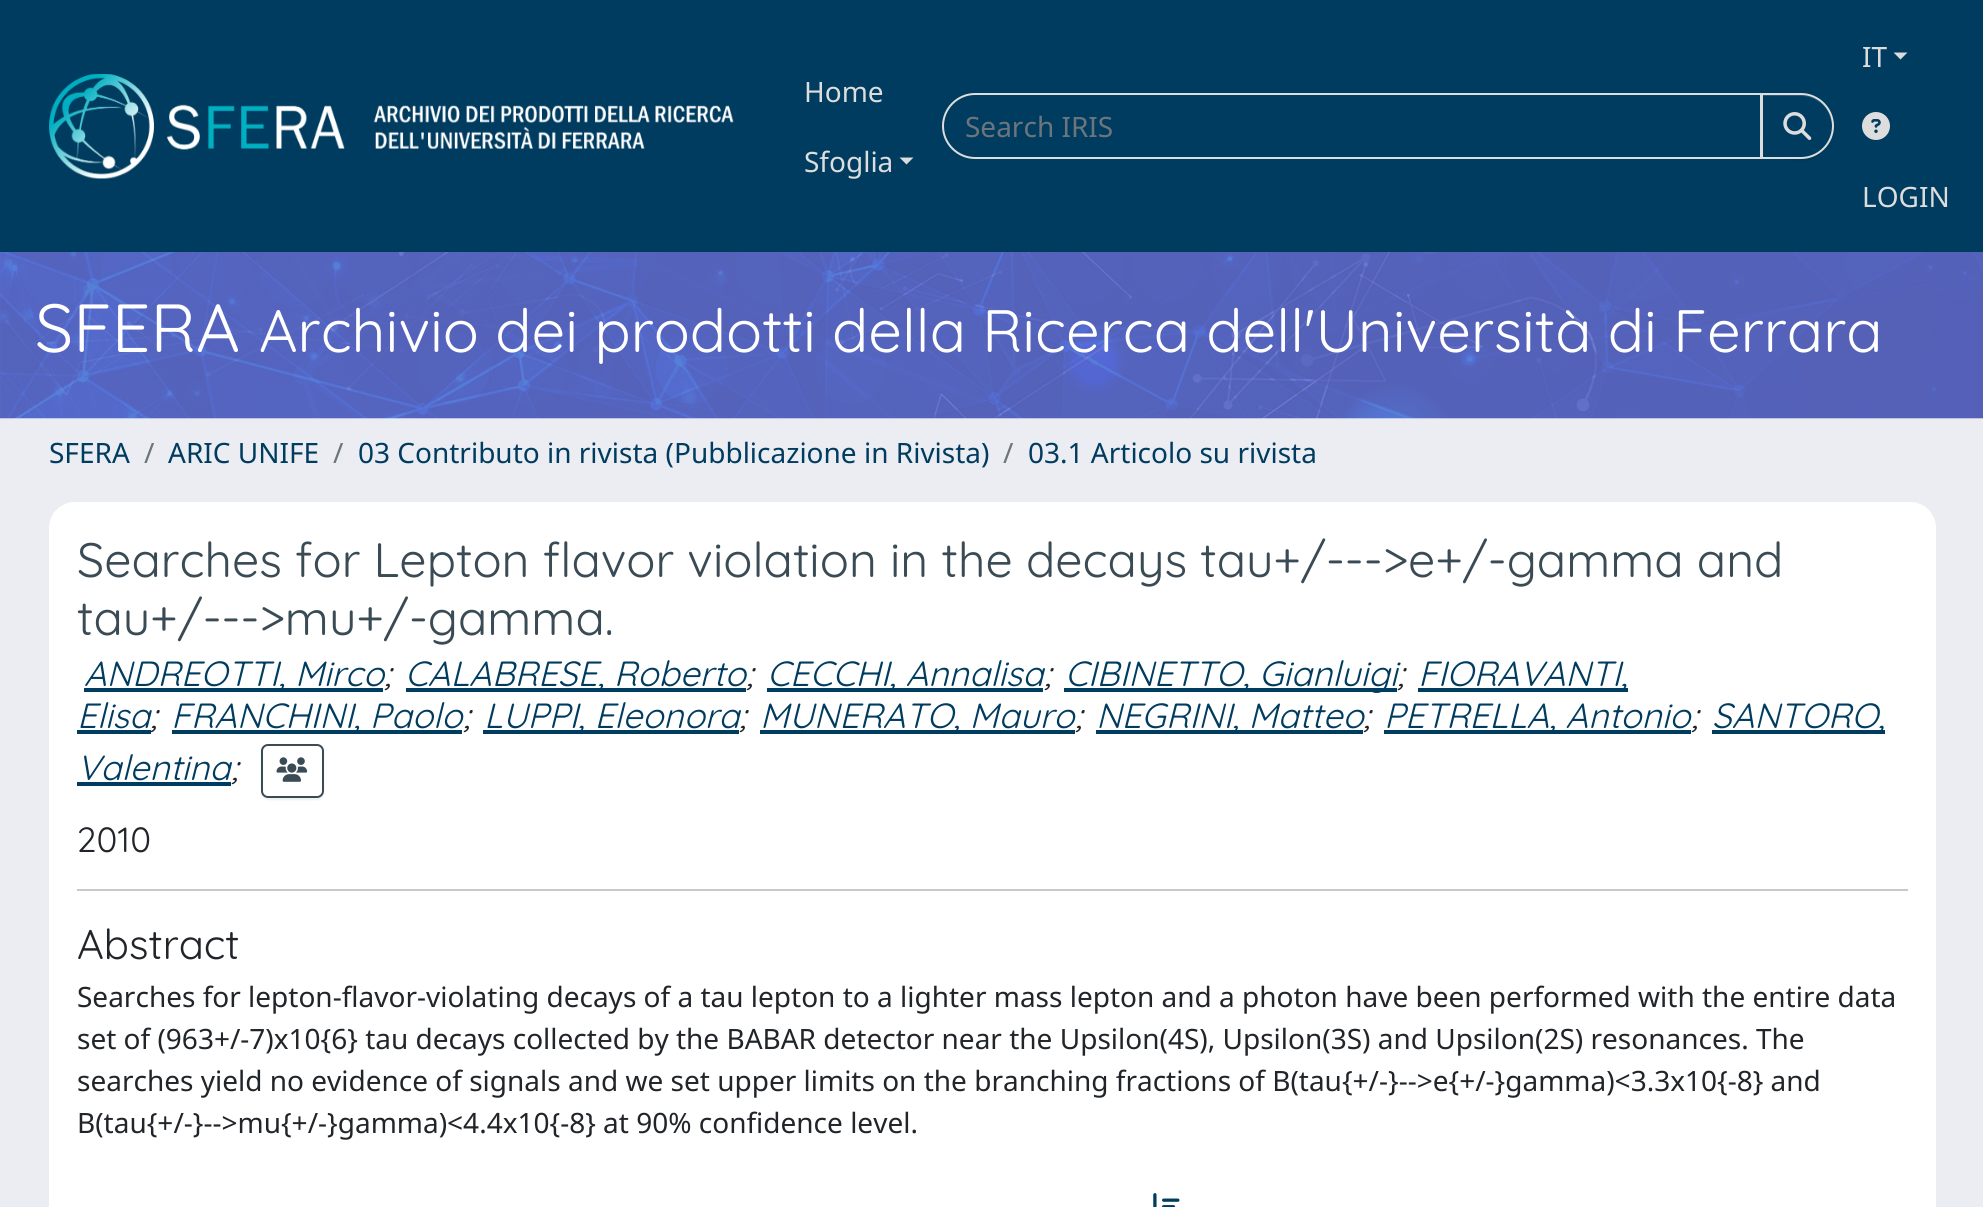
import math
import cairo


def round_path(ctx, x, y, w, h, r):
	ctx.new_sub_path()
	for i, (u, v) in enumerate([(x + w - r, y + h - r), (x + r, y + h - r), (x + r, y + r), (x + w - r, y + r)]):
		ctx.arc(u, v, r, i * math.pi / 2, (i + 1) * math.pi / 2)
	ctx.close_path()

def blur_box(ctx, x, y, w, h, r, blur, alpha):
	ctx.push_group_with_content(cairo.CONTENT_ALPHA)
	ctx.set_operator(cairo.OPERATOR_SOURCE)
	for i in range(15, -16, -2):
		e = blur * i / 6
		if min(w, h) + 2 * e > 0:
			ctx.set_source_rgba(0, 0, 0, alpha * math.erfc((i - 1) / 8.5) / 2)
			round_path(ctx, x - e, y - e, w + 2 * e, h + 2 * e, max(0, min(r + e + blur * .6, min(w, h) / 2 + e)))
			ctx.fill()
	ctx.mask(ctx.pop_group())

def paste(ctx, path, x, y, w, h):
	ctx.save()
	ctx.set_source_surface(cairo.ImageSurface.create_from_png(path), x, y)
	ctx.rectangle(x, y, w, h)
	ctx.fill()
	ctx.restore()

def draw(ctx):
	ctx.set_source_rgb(0.925, 0.929, 0.949)
	ctx.paint()
	ctx.set_source_rgb(0, 0.235, 0.373)
	ctx.rectangle(0, 0, 1983, 252)
	ctx.fill()
	paste(ctx, 'media/1.png', 49, 74, 685, 105)
	ctx.select_font_face('Noto Sans')
	ctx.set_font_size(28)
	ctx.set_source_rgb(0.867, 0.867, 0.867)
	ctx.move_to(804, 102)
	ctx.show_text('Home')
	ctx.move_to(804, 172)
	ctx.show_text('Sfoglia')
	ctx.new_path()
	ctx.move_to(899.5, 157.5)
	ctx.line_to(913.5, 157.5)
	ctx.line_to(906.5, 164.5)
	ctx.close_path()
	ctx.fill()
	ctx.new_path()
	ctx.move_to(975, 94)
	ctx.line_to(1761, 94)
	ctx.line_to(1761, 158)
	ctx.line_to(975, 158)
	ctx.curve_to(957.5, 158, 943, 143.5, 943, 126)
	ctx.curve_to(943, 108.5, 957.5, 94, 975, 94)
	ctx.close_path()
	ctx.stroke()
	ctx.set_source_rgb(0.424, 0.459, 0.49)
	ctx.move_to(965, 137)
	ctx.show_text('Search IRIS')
	ctx.set_source_rgb(0, 0, 0)
	blur_box(ctx, 1761, 95, 73, 66, 33, 1, 0.07)
	ctx.set_source_rgb(0, 0.235, 0.373)
	ctx.new_path()
	ctx.move_to(1761, 93)
	ctx.line_to(1801, 93)
	ctx.curve_to(1819, 93, 1834, 108, 1834, 126)
	ctx.curve_to(1834, 144, 1819, 159, 1801, 159)
	ctx.line_to(1761, 159)
	ctx.close_path()
	ctx.fill()
	ctx.set_source_rgb(0.149, 0.349, 0.467)
	ctx.new_path()
	ctx.move_to(1762, 96)
	ctx.line_to(1801, 96)
	ctx.curve_to(1818, 96, 1832, 110, 1832, 127)
	ctx.line_to(1832, 126)
	ctx.curve_to(1832, 109, 1818, 95, 1800, 95)
	ctx.line_to(1762, 95)
	ctx.close_path()
	ctx.fill()
	ctx.new_path()
	ctx.move_to(1762, 94)
	ctx.line_to(1801, 94)
	ctx.curve_to(1818.5, 94, 1833, 108.5, 1833, 126)
	ctx.curve_to(1833, 143.5, 1818.5, 158, 1801, 158)
	ctx.line_to(1762, 158)
	ctx.close_path()
	ctx.set_source_rgb(0.867, 0.867, 0.867)
	ctx.stroke()
	paste(ctx, 'media/2.png', 1783, 112, 29, 28)
	ctx.move_to(1862, 67)
	ctx.show_text('IT')
	ctx.new_path()
	ctx.move_to(1893.5, 52.5)
	ctx.line_to(1907.5, 52.5)
	ctx.line_to(1900.5, 59.5)
	ctx.close_path()
	ctx.fill()
	paste(ctx, 'media/3.png', 1862, 112, 28, 28)
	ctx.move_to(1862, 207)
	ctx.show_text('LOGIN')
	paste(ctx, 'media/4.png', 0, 252, 1983, 167)
	ctx.select_font_face('Quicksand')
	ctx.set_font_size(68)
	ctx.set_source_rgb(1, 1, 1)
	ctx.move_to(35, 352)
	ctx.show_text('SFERA')
	ctx.set_font_size(59.75)
	ctx.move_to(259, 352)
	ctx.show_text('Archivio dei prodotti della Ricerca dell\'Università di Ferrara')
	ctx.select_font_face('Noto Sans')
	ctx.set_font_size(28)
	ctx.set_source_rgb(0, 0.235, 0.373)
	ctx.move_to(49, 463)
	ctx.show_text('SFERA')
	ctx.set_source_rgb(0.424, 0.459, 0.49)
	ctx.move_to(144, 463)
	ctx.show_text('/')
	ctx.set_source_rgb(0, 0.235, 0.373)
	ctx.move_to(168, 463)
	ctx.show_text('ARIC UNIFE')
	ctx.set_source_rgb(0.424, 0.459, 0.49)
	ctx.move_to(333, 463)
	ctx.show_text('/')
	ctx.set_source_rgb(0, 0.235, 0.373)
	ctx.move_to(358, 463)
	ctx.show_text('03 Contributo in rivista (Pubblicazione in Rivista)')
	ctx.set_source_rgb(0.424, 0.459, 0.49)
	ctx.move_to(1003, 463)
	ctx.show_text('/')
	ctx.set_source_rgb(0, 0.235, 0.373)
	ctx.move_to(1028, 463)
	ctx.show_text('03.1 Articolo su rivista')
	ctx.set_source_rgb(1, 1, 1)
	round_path(ctx, 49, 502, 1887, 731, 26)
	ctx.fill()
	ctx.select_font_face('Quicksand')
	ctx.set_font_size(48.3)
	ctx.set_source_rgb(0.227, 0.294, 0.333)
	ctx.move_to(77, 577)
	ctx.show_text('Searches for Lepton flavor violation in the decays tau+/--->e+/-gamma and')
	ctx.move_to(77, 635)
	ctx.show_text('tau+/--->mu+/-gamma.')
	ctx.set_source_rgb(0, 0.235, 0.373)
	ctx.rectangle(84, 688, 299, 4)
	ctx.fill()
	ctx.select_font_face('Quicksand', cairo.FONT_SLANT_ITALIC)
	ctx.set_font_size(35)
	ctx.move_to(84, 686)
	ctx.show_text('ANDREOTTI, Mirco')
	ctx.set_source_rgb(0.129, 0.145, 0.161)
	ctx.move_to(384, 686)
	ctx.show_text(';')
	ctx.set_source_rgb(0, 0.235, 0.373)
	ctx.rectangle(406, 688, 340, 4)
	ctx.fill()
	ctx.move_to(405, 686)
	ctx.show_text('CALABRESE, Roberto')
	ctx.set_source_rgb(0.129, 0.145, 0.161)
	ctx.move_to(746, 686)
	ctx.show_text(';')
	ctx.set_source_rgb(0, 0.235, 0.373)
	ctx.rectangle(767, 688, 276, 4)
	ctx.fill()
	ctx.move_to(767, 686)
	ctx.show_text('CECCHI, Annalisa')
	ctx.set_source_rgb(0.129, 0.145, 0.161)
	ctx.move_to(1044, 686)
	ctx.show_text(';')
	ctx.set_source_rgb(0, 0.235, 0.373)
	ctx.rectangle(1064, 688, 333, 4)
	ctx.fill()
	ctx.move_to(1065, 686)
	ctx.show_text('CIBINETTO, Gianluigi')
	ctx.set_source_rgb(0.129, 0.145, 0.161)
	ctx.move_to(1397, 686)
	ctx.show_text(';')
	ctx.set_source_rgb(0, 0.235, 0.373)
	ctx.rectangle(1418, 688, 210, 4)
	ctx.fill()
	ctx.move_to(1418, 686)
	ctx.show_text('FIORAVANTI,')
	ctx.move_to(77, 728)
	ctx.show_text('Elisa')
	ctx.rectangle(77, 730, 74, 4)
	ctx.fill()
	ctx.set_source_rgb(0.129, 0.145, 0.161)
	ctx.move_to(150, 728)
	ctx.show_text(';')
	ctx.set_source_rgb(0, 0.235, 0.373)
	ctx.rectangle(172, 730, 290, 4)
	ctx.fill()
	ctx.move_to(171, 728)
	ctx.show_text('FRANCHINI, Paolo')
	ctx.set_source_rgb(0.129, 0.145, 0.161)
	ctx.move_to(463, 728)
	ctx.show_text(';')
	ctx.set_source_rgb(0, 0.235, 0.373)
	ctx.rectangle(483, 730, 256, 4)
	ctx.fill()
	ctx.move_to(484, 728)
	ctx.show_text('LUPPI, Eleonora')
	ctx.set_source_rgb(0.129, 0.145, 0.161)
	ctx.move_to(739, 728)
	ctx.show_text(';')
	ctx.set_source_rgb(0, 0.235, 0.373)
	ctx.rectangle(760, 730, 315, 4)
	ctx.fill()
	ctx.move_to(760, 728)
	ctx.show_text('MUNERATO, Mauro')
	ctx.set_source_rgb(0.129, 0.145, 0.161)
	ctx.move_to(1075, 728)
	ctx.show_text(';')
	ctx.set_source_rgb(0, 0.235, 0.373)
	ctx.rectangle(1096, 730, 267, 4)
	ctx.fill()
	ctx.move_to(1096, 728)
	ctx.show_text('NEGRINI, Matteo')
	ctx.set_source_rgb(0.129, 0.145, 0.161)
	ctx.move_to(1363, 728)
	ctx.show_text(';')
	ctx.set_source_rgb(0, 0.235, 0.373)
	ctx.rectangle(1384, 730, 307, 4)
	ctx.fill()
	ctx.move_to(1384, 728)
	ctx.show_text('PETRELLA, Antonio')
	ctx.set_source_rgb(0.129, 0.145, 0.161)
	ctx.move_to(1691, 728)
	ctx.show_text(';')
	ctx.set_source_rgb(0, 0.235, 0.373)
	ctx.rectangle(1712, 730, 173, 4)
	ctx.fill()
	ctx.move_to(1712, 728)
	ctx.show_text('SANTORO,')
	ctx.move_to(77, 780)
	ctx.show_text('Valentina')
	ctx.set_source_rgb(0.129, 0.145, 0.161)
	ctx.move_to(231, 780)
	ctx.show_text(';')
	ctx.set_source_rgb(0, 0.235, 0.373)
	ctx.rectangle(77, 782, 154, 4)
	ctx.fill()
	ctx.save()
	ctx.set_fill_rule(cairo.FILL_RULE_EVEN_ODD)
	ctx.new_path()
	ctx.move_to(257, 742)
	ctx.line_to(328, 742)
	ctx.line_to(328, 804)
	ctx.line_to(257, 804)
	ctx.close_path()
	ctx.move_to(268, 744)
	ctx.line_to(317, 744)
	ctx.curve_to(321, 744, 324, 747, 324, 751)
	ctx.line_to(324, 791)
	ctx.curve_to(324, 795, 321, 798, 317, 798)
	ctx.line_to(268, 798)
	ctx.curve_to(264, 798, 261, 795, 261, 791)
	ctx.line_to(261, 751)
	ctx.curve_to(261, 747, 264, 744, 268, 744)
	ctx.close_path()
	ctx.clip()
	ctx.set_source_rgb(0, 0, 0)
	blur_box(ctx, 261, 746, 63, 54, 7, 1, 0.07)
	ctx.restore()
	round_path(ctx, 262, 745, 61, 52, 6)
	ctx.set_source_rgb(0.227, 0.294, 0.333)
	ctx.stroke()
	paste(ctx, 'media/5.png', 276, 757, 32, 25)
	ctx.select_font_face('Quicksand')
	ctx.set_source_rgb(0.129, 0.145, 0.161)
	ctx.move_to(77, 852)
	ctx.show_text('2010')
	ctx.set_source_rgb(0.784, 0.788, 0.792)
	ctx.rectangle(77, 889, 1831, 2)
	ctx.fill()
	ctx.set_font_size(41.5)
	ctx.set_source_rgb(0.129, 0.145, 0.161)
	ctx.move_to(77, 959)
	ctx.show_text('Abstract')
	ctx.select_font_face('Noto Sans')
	ctx.set_font_size(28)
	for x, y, s in [
		(77, 1007, 'Searches for lepton-flavor-violating decays of a tau lepton to a lighter mass lepton and a photon have been performed with the entire data'),
		(77, 1049, 'set of (963+/-7)x10{6} tau decays collected by the BABAR detector near the Upsilon(4S), Upsilon(3S) and Upsilon(2S) resonances. The'),
		(77, 1091, 'searches yield no evidence of signals and we set upper limits on the branching fractions of B(tau{+/-}-->e{+/-}gamma)<3.3x10{-8} and'),
		(77, 1133, 'B(tau{+/-}-->mu{+/-}gamma)<4.4x10{-8} at 90% confidence level.'),
	]:
		ctx.move_to(x, y)
		ctx.show_text(s)
	paste(ctx, 'media/6.png', 1153, 1193, 27, 14)


surface = cairo.ImageSurface(cairo.FORMAT_RGB24, 1983, 1207)
ctx = cairo.Context(surface)
options = cairo.FontOptions()
options.set_hint_metrics(cairo.HINT_METRICS_OFF)
options.set_hint_style(cairo.HINT_STYLE_NONE)
ctx.set_font_options(options)
ctx.set_miter_limit(4)
draw(ctx)
surface.write_to_png('image.png')
